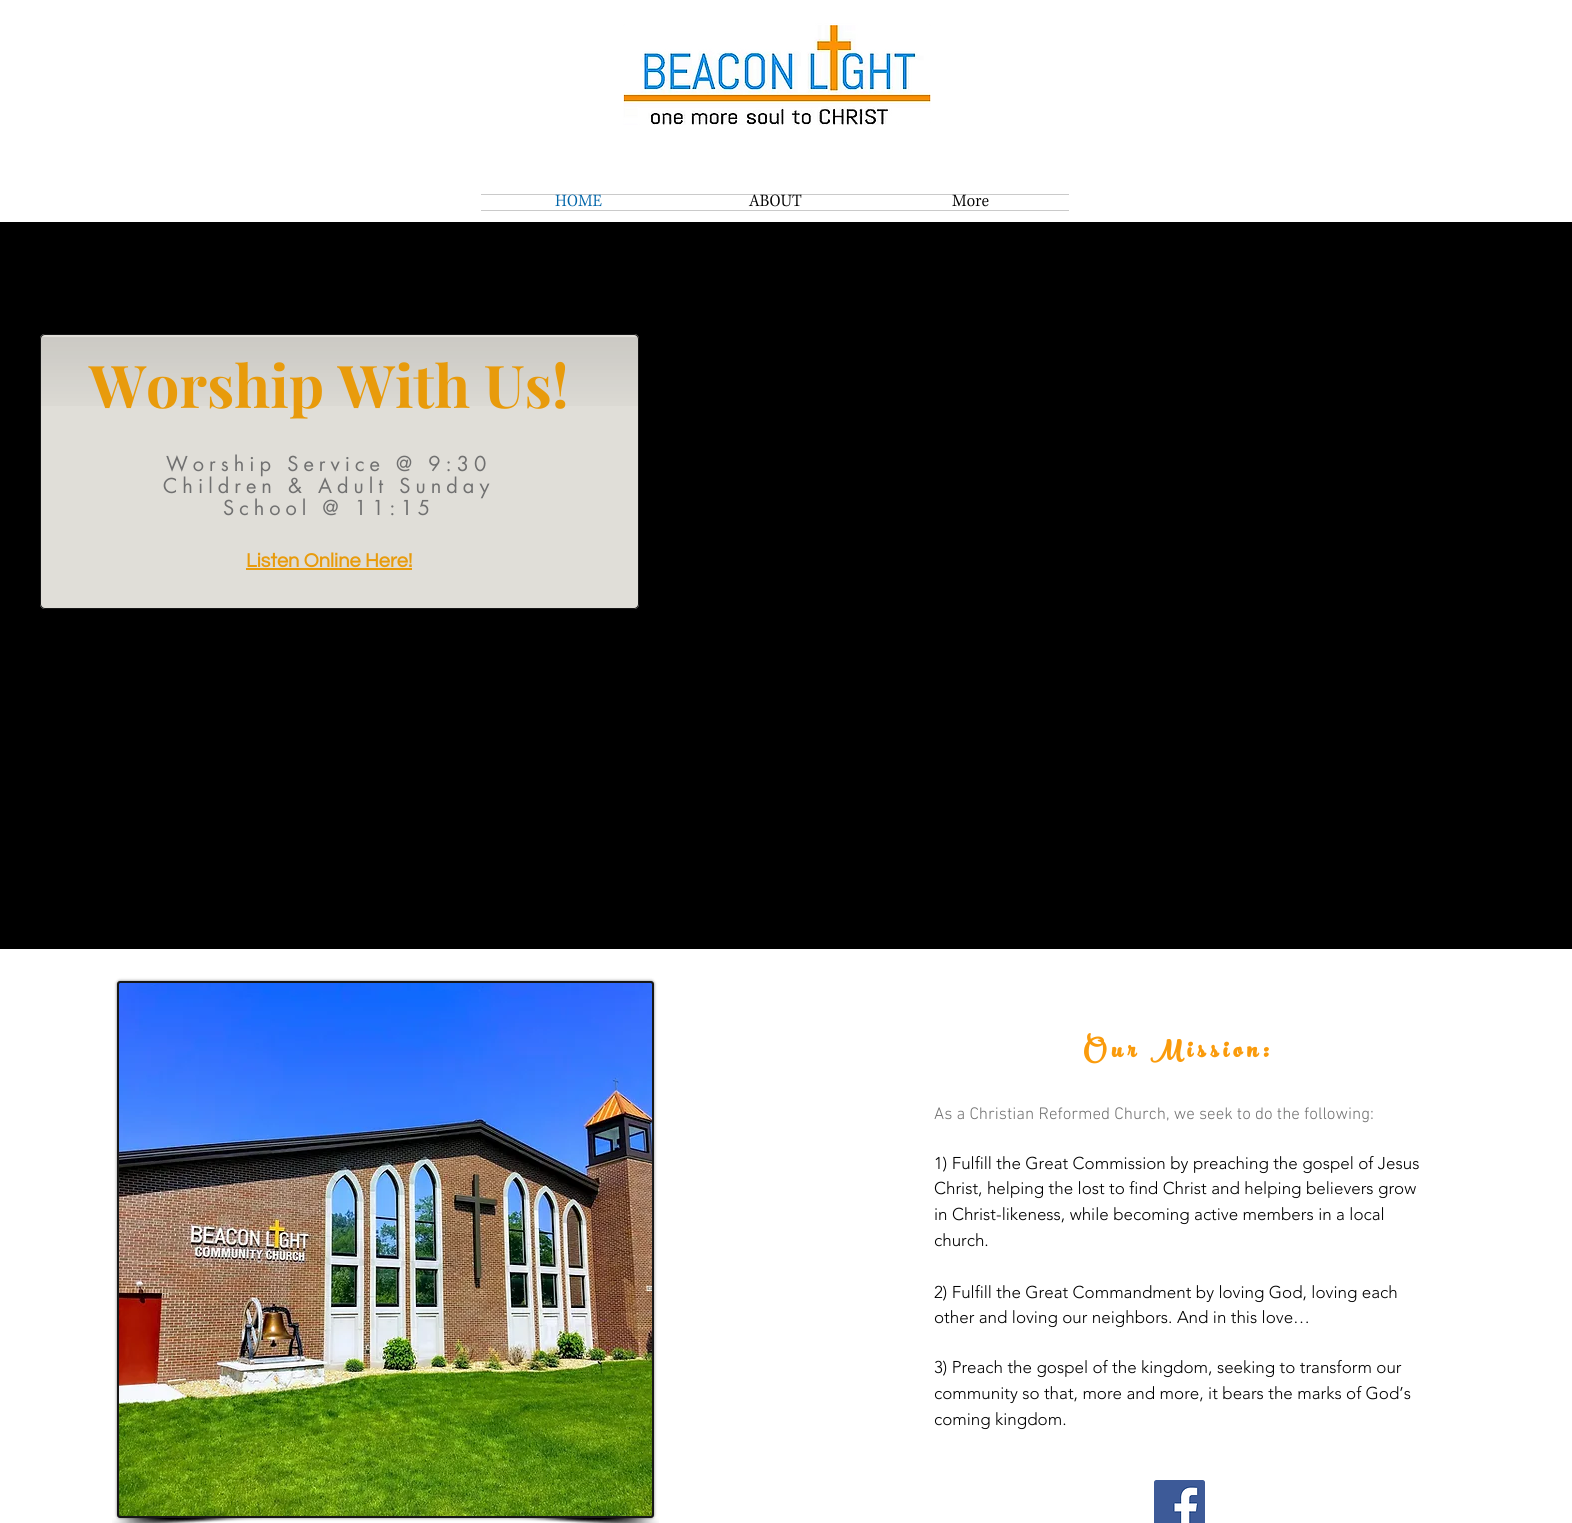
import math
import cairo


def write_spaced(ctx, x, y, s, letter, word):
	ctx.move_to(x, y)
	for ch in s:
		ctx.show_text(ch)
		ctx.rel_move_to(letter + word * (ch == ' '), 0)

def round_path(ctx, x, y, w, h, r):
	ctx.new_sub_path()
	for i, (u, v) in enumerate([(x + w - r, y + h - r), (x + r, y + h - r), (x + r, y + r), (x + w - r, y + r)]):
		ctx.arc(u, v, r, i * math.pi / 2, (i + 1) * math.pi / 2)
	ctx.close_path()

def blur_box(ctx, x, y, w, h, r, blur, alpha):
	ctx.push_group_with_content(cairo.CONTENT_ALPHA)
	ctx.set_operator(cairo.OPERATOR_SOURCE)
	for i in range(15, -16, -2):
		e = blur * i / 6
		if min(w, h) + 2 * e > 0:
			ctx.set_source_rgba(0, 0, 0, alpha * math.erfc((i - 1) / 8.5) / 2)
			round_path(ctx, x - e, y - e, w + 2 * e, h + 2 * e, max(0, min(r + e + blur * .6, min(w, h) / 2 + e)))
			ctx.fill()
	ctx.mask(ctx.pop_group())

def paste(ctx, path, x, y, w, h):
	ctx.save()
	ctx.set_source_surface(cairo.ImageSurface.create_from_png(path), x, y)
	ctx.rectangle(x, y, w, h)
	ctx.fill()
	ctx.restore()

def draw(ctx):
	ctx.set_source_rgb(1, 1, 1)
	ctx.paint()
	paste(ctx, 'media/1.png', 623, 23, 308, 102)
	ctx.set_source_rgb(0.792, 0.792, 0.792)
	ctx.rectangle(481, 194, 588, 1)
	ctx.fill()
	ctx.rectangle(481, 210, 588, 1)
	ctx.fill()
	paste(ctx, 'media/2.png', 555, 194, 47, 13)
	paste(ctx, 'media/3.png', 748, 194, 54, 13)
	paste(ctx, 'media/4.png', 952, 194, 37, 13)
	ctx.set_source_rgb(0, 0, 0)
	ctx.rectangle(0, 222, 1572, 727)
	ctx.fill()
	ctx.set_source_rgb(0.878, 0.871, 0.847)
	round_path(ctx, 40, 334, 599, 275, 5)
	ctx.fill()
	paste(ctx, 'media/5.png', 40, 337, 599, 69)
	round_path(ctx, 40.5, 334.5, 598, 274, 4.5)
	ctx.set_source_rgb(0.09, 0.09, 0.09)
	ctx.set_line_width(1)
	ctx.stroke()
	ctx.select_font_face('Playfair Display', cairo.FONT_SLANT_NORMAL, cairo.FONT_WEIGHT_BOLD)
	ctx.set_font_size(59)
	ctx.set_source_rgb(0.91, 0.608, 0.047)
	ctx.move_to(89, 408)
	ctx.show_text('Worship With Us!')
	ctx.select_font_face('futura')
	ctx.set_font_size(20)
	ctx.set_source_rgb(0.439, 0.439, 0.439)
	for x, y, s in [
		(166, 471, 'Worship Service @ 9:30'),
		(163, 493, 'Children & Adult Sunday'),
		(223, 515, 'School @ 11:15'),
	]:
		write_spaced(ctx, x, y, s, 5, 0)
	ctx.select_font_face('Questrial', cairo.FONT_SLANT_NORMAL, cairo.FONT_WEIGHT_BOLD)
	ctx.set_source_rgb(0.91, 0.608, 0.047)
	ctx.move_to(246, 567)
	ctx.show_text('Listen Online Here!')
	ctx.rectangle(246, 568, 166, 2)
	ctx.fill()
	ctx.set_source_rgb(0, 0, 0)
	blur_box(ctx, 117, 981, 537, 537, 3, 1.5, 0.5)
	ctx.set_source_rgb(0.09, 0.09, 0.09)
	round_path(ctx, 118, 982, 535, 535, 2)
	ctx.fill_preserve()
	ctx.set_line_width(2)
	ctx.stroke()
	paste(ctx, 'media/6.png', 119, 983, 533, 533)
	paste(ctx, 'media/7.png', 112, 1518, 150, 5)
	paste(ctx, 'media/8.png', 509, 1518, 150, 5)
	ctx.select_font_face('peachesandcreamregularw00', cairo.FONT_SLANT_NORMAL, cairo.FONT_WEIGHT_BOLD)
	ctx.set_font_size(36)
	ctx.set_source_rgb(0.98, 0.608, 0.047)
	write_spaced(ctx, 1084, 1057, 'Our Mission:', 5.4, 0)
	ctx.select_font_face('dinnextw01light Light')
	ctx.set_font_size(17)
	ctx.set_source_rgb(0.439, 0.439, 0.439)
	ctx.move_to(934, 1119)
	ctx.show_text('As a Christian Reformed Church, we seek to do the following:')
	ctx.select_font_face('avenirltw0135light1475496 Light')
	ctx.set_source_rgb(0, 0, 0)
	for x, y, s in [
		(934, 1169, '1) Fulfill the Great Commission by preaching the gospel of Jesus'),
		(934, 1194, 'Christ, helping the lost to find Christ and helping believers grow'),
		(934, 1220, 'in Christ-likeness, while becoming active members in a local'),
		(934, 1246, 'church.'),
		(934, 1298, '2) Fulfill the Great Commandment by loving God, loving each'),
		(934, 1323, 'other and loving our neighbors. And in this love…'),
		(934, 1373, '3) Preach the gospel of the kingdom, seeking to transform our'),
		(934, 1399, 'community so that, more and more, it bears the marks of God’s'),
		(934, 1425, 'coming kingdom.'),
	]:
		ctx.move_to(x, y)
		ctx.show_text(s)
	paste(ctx, 'media/9.png', 1154, 1480, 51, 43)


surface = cairo.ImageSurface(cairo.FORMAT_RGB24, 1572, 1523)
ctx = cairo.Context(surface)
options = cairo.FontOptions()
options.set_hint_metrics(cairo.HINT_METRICS_OFF)
options.set_hint_style(cairo.HINT_STYLE_NONE)
ctx.set_font_options(options)
ctx.set_miter_limit(4)
draw(ctx)
surface.write_to_png('image.png')
